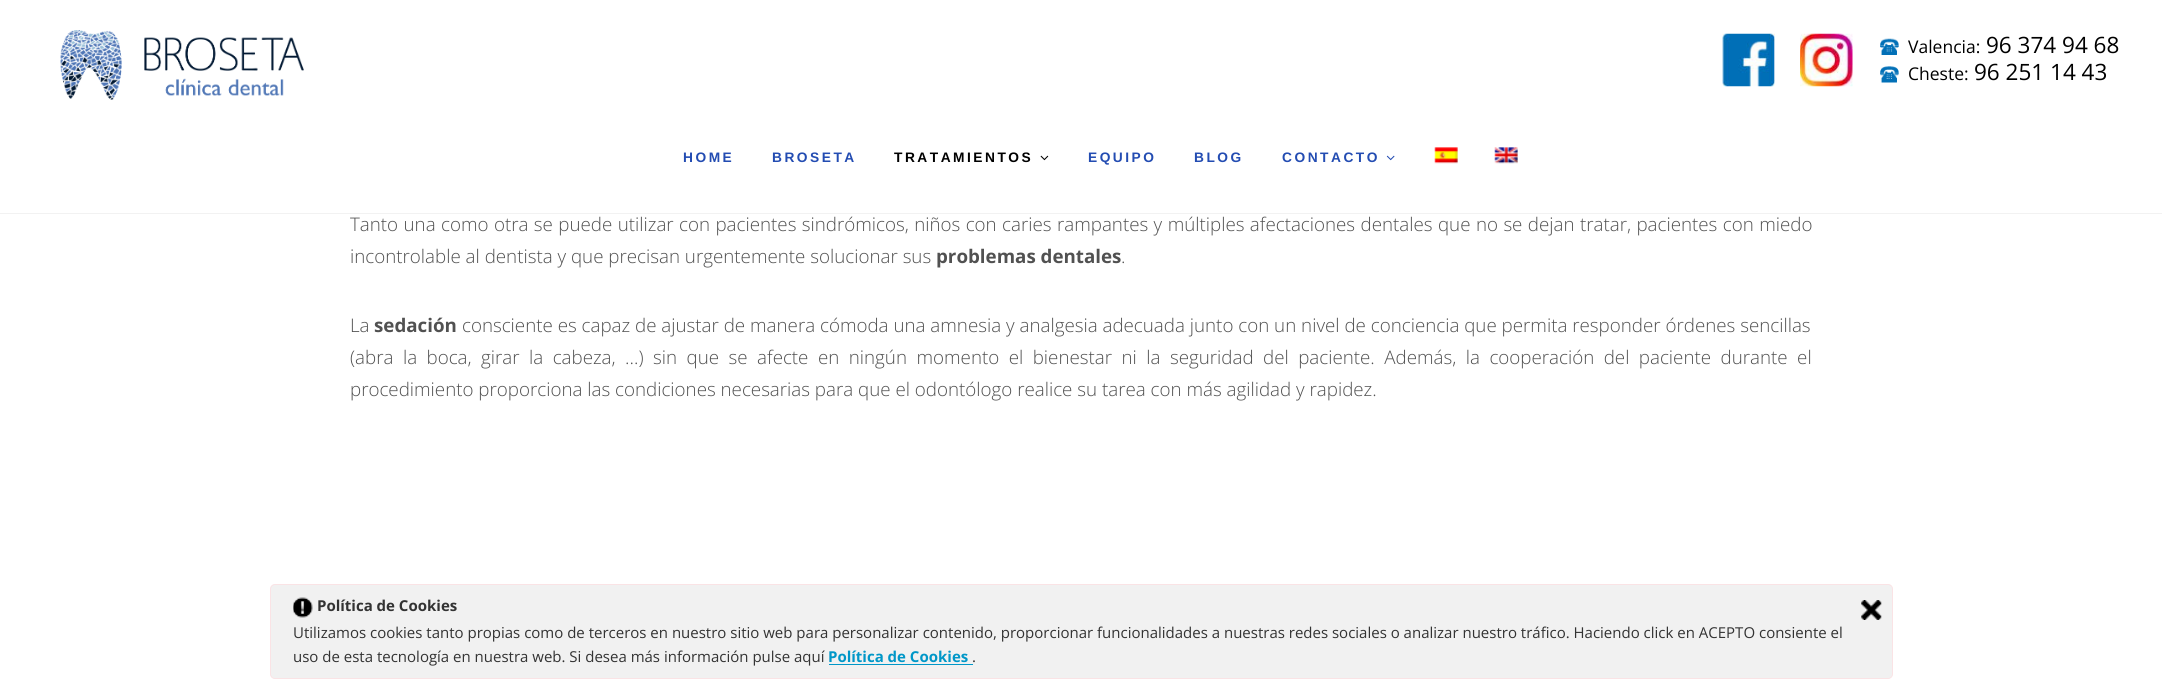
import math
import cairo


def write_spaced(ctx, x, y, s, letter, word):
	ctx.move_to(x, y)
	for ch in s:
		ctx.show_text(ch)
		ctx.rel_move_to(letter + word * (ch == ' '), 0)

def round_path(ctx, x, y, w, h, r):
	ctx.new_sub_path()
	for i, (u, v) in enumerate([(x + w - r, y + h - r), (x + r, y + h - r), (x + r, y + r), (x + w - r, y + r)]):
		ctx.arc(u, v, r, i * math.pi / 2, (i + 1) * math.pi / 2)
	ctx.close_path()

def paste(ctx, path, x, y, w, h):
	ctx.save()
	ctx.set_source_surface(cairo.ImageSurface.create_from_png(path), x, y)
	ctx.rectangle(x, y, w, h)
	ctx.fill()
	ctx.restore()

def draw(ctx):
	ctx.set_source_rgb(1, 1, 1)
	ctx.paint()
	ctx.set_source_rgb(0.949, 0.949, 0.949)
	ctx.new_path()
	ctx.move_to(0, 212)
	ctx.line_to(0, 214)
	ctx.line_to(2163, 214)
	ctx.line_to(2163, 1)
	ctx.line_to(2162, 1)
	ctx.line_to(2162, 212)
	ctx.close_path()
	ctx.fill()
	ctx.set_source_rgb(1, 1, 1)
	ctx.rectangle(0, 212, 2162, 1)
	ctx.fill()
	paste(ctx, 'media/1.png', 60, 30, 244, 70)
	paste(ctx, 'media/2.png', 1722, 33, 53, 54)
	paste(ctx, 'media/3.png', 1800, 33, 53, 54)
	paste(ctx, 'media/4.png', 1880, 38, 19, 17)
	ctx.select_font_face('Open Sans')
	ctx.set_font_size(17.5)
	ctx.set_source_rgb(0, 0, 0)
	ctx.move_to(1908, 53)
	ctx.show_text('Valencia:')
	ctx.set_font_size(22.5)
	ctx.move_to(1986, 53)
	ctx.show_text('96 374 94 68')
	paste(ctx, 'media/5.png', 1880, 66, 19, 17)
	ctx.set_font_size(17.5)
	ctx.move_to(1908, 80)
	ctx.show_text('Cheste:')
	ctx.set_font_size(22.5)
	ctx.move_to(1974, 80)
	ctx.show_text('96 251 14 43')
	ctx.select_font_face('Liberation Sans', cairo.FONT_SLANT_NORMAL, cairo.FONT_WEIGHT_BOLD)
	ctx.set_font_size(13.75)
	ctx.set_source_rgb(0.137, 0.298, 0.698)
	write_spaced(ctx, 683, 162, 'HOME', 2.5, 0)
	write_spaced(ctx, 772, 162, 'BROSETA', 2.5, 0)
	ctx.set_source_rgb(0, 0, 0)
	write_spaced(ctx, 894, 162, 'TRATAMIENTOS', 2.5, 0)
	paste(ctx, 'media/6.png', 1040, 155, 9, 6)
	ctx.set_source_rgb(0.137, 0.298, 0.698)
	for x, y, s in [
		(1088, 162, 'EQUIPO'),
		(1194, 162, 'BLOG'),
		(1282, 162, 'CONTACTO'),
	]:
		write_spaced(ctx, x, y, s, 2.5, 0)
	paste(ctx, 'media/7.png', 1386, 155, 9, 6)
	paste(ctx, 'media/8.png', 1434, 147, 24, 17)
	paste(ctx, 'media/9.png', 1494, 147, 24, 17)
	ctx.select_font_face('Open Sans Light')
	ctx.set_font_size(18.75)
	ctx.set_source_rgb(0.318, 0.318, 0.318)
	write_spaced(ctx, 350, 231, 'Tanto una como otra se puede utilizar con pacientes sindrómicos, niños con caries rampantes y múltiples afectaciones dentales que no se dejan tratar, pacientes con miedo', 0, 0.55)
	ctx.move_to(350, 263)
	ctx.show_text('incontrolable al dentista y que precisan urgentemente solucionar sus')
	ctx.select_font_face('Open Sans', cairo.FONT_SLANT_NORMAL, cairo.FONT_WEIGHT_BOLD)
	ctx.move_to(936, 263)
	ctx.show_text('problemas dentales')
	ctx.select_font_face('Open Sans Light')
	ctx.move_to(1121, 263)
	ctx.show_text('.')
	ctx.move_to(350, 332)
	ctx.show_text('La')
	ctx.select_font_face('Open Sans', cairo.FONT_SLANT_NORMAL, cairo.FONT_WEIGHT_BOLD)
	ctx.move_to(374, 332)
	ctx.show_text('sedación')
	ctx.select_font_face('Open Sans Light')
	ctx.move_to(462, 332)
	ctx.show_text('consciente es capaz de ajustar de manera cómoda una amnesia y analgesia adecuada junto con un nivel de conciencia que permita responder órdenes sencillas')
	write_spaced(ctx, 350, 364, '(abra la boca, girar la cabeza, …) sin que se afecte en ningún momento el bienestar ni la seguridad del paciente. Además, la cooperación del paciente durante el', 0, 4.6)
	ctx.move_to(350, 396)
	ctx.show_text('procedimiento proporciona las condiciones necesarias para que el odontólogo realice su tarea con más agilidad y rapidez.')
	ctx.set_source_rgb(0.945, 0.945, 0.945)
	round_path(ctx, 270.5, 584.5, 1622, 94, 4.5)
	ctx.fill_preserve()
	ctx.set_source_rgb(0.98, 0.89, 0.898)
	ctx.set_line_width(1)
	ctx.stroke()
	paste(ctx, 'media/10.png', 293, 597, 20, 21)
	ctx.select_font_face('Open Sans', cairo.FONT_SLANT_NORMAL, cairo.FONT_WEIGHT_BOLD)
	ctx.set_font_size(15)
	ctx.set_source_rgb(0.2, 0.2, 0.2)
	ctx.move_to(317, 611)
	ctx.show_text('Política de Cookies')
	paste(ctx, 'media/11.png', 1861, 600, 21, 20)
	ctx.select_font_face('Open Sans')
	ctx.move_to(293, 638)
	ctx.show_text('Utilizamos cookies tanto propias como de terceros en nuestro sitio web para personalizar contenido, proporcionar funcionalidades a nuestras redes sociales o analizar nuestro tráfico. Haciendo click en ACEPTO consiente el')
	ctx.move_to(293, 662)
	ctx.show_text('uso de esta tecnología en nuestra web. Si desea más información pulse aquí')
	ctx.select_font_face('Open Sans', cairo.FONT_SLANT_NORMAL, cairo.FONT_WEIGHT_BOLD)
	ctx.set_source_rgb(0, 0.592, 0.784)
	ctx.move_to(828, 662)
	ctx.show_text('Política de Cookies')
	ctx.rectangle(829, 664, 144, 1)
	ctx.fill()
	ctx.select_font_face('Open Sans')
	ctx.set_source_rgb(0.2, 0.2, 0.2)
	ctx.move_to(972, 662)
	ctx.show_text('.')


surface = cairo.ImageSurface(cairo.FORMAT_RGB24, 2162, 685)
ctx = cairo.Context(surface)
options = cairo.FontOptions()
options.set_hint_metrics(cairo.HINT_METRICS_OFF)
options.set_hint_style(cairo.HINT_STYLE_NONE)
ctx.set_font_options(options)
ctx.set_miter_limit(4)
draw(ctx)
surface.write_to_png('image.png')
